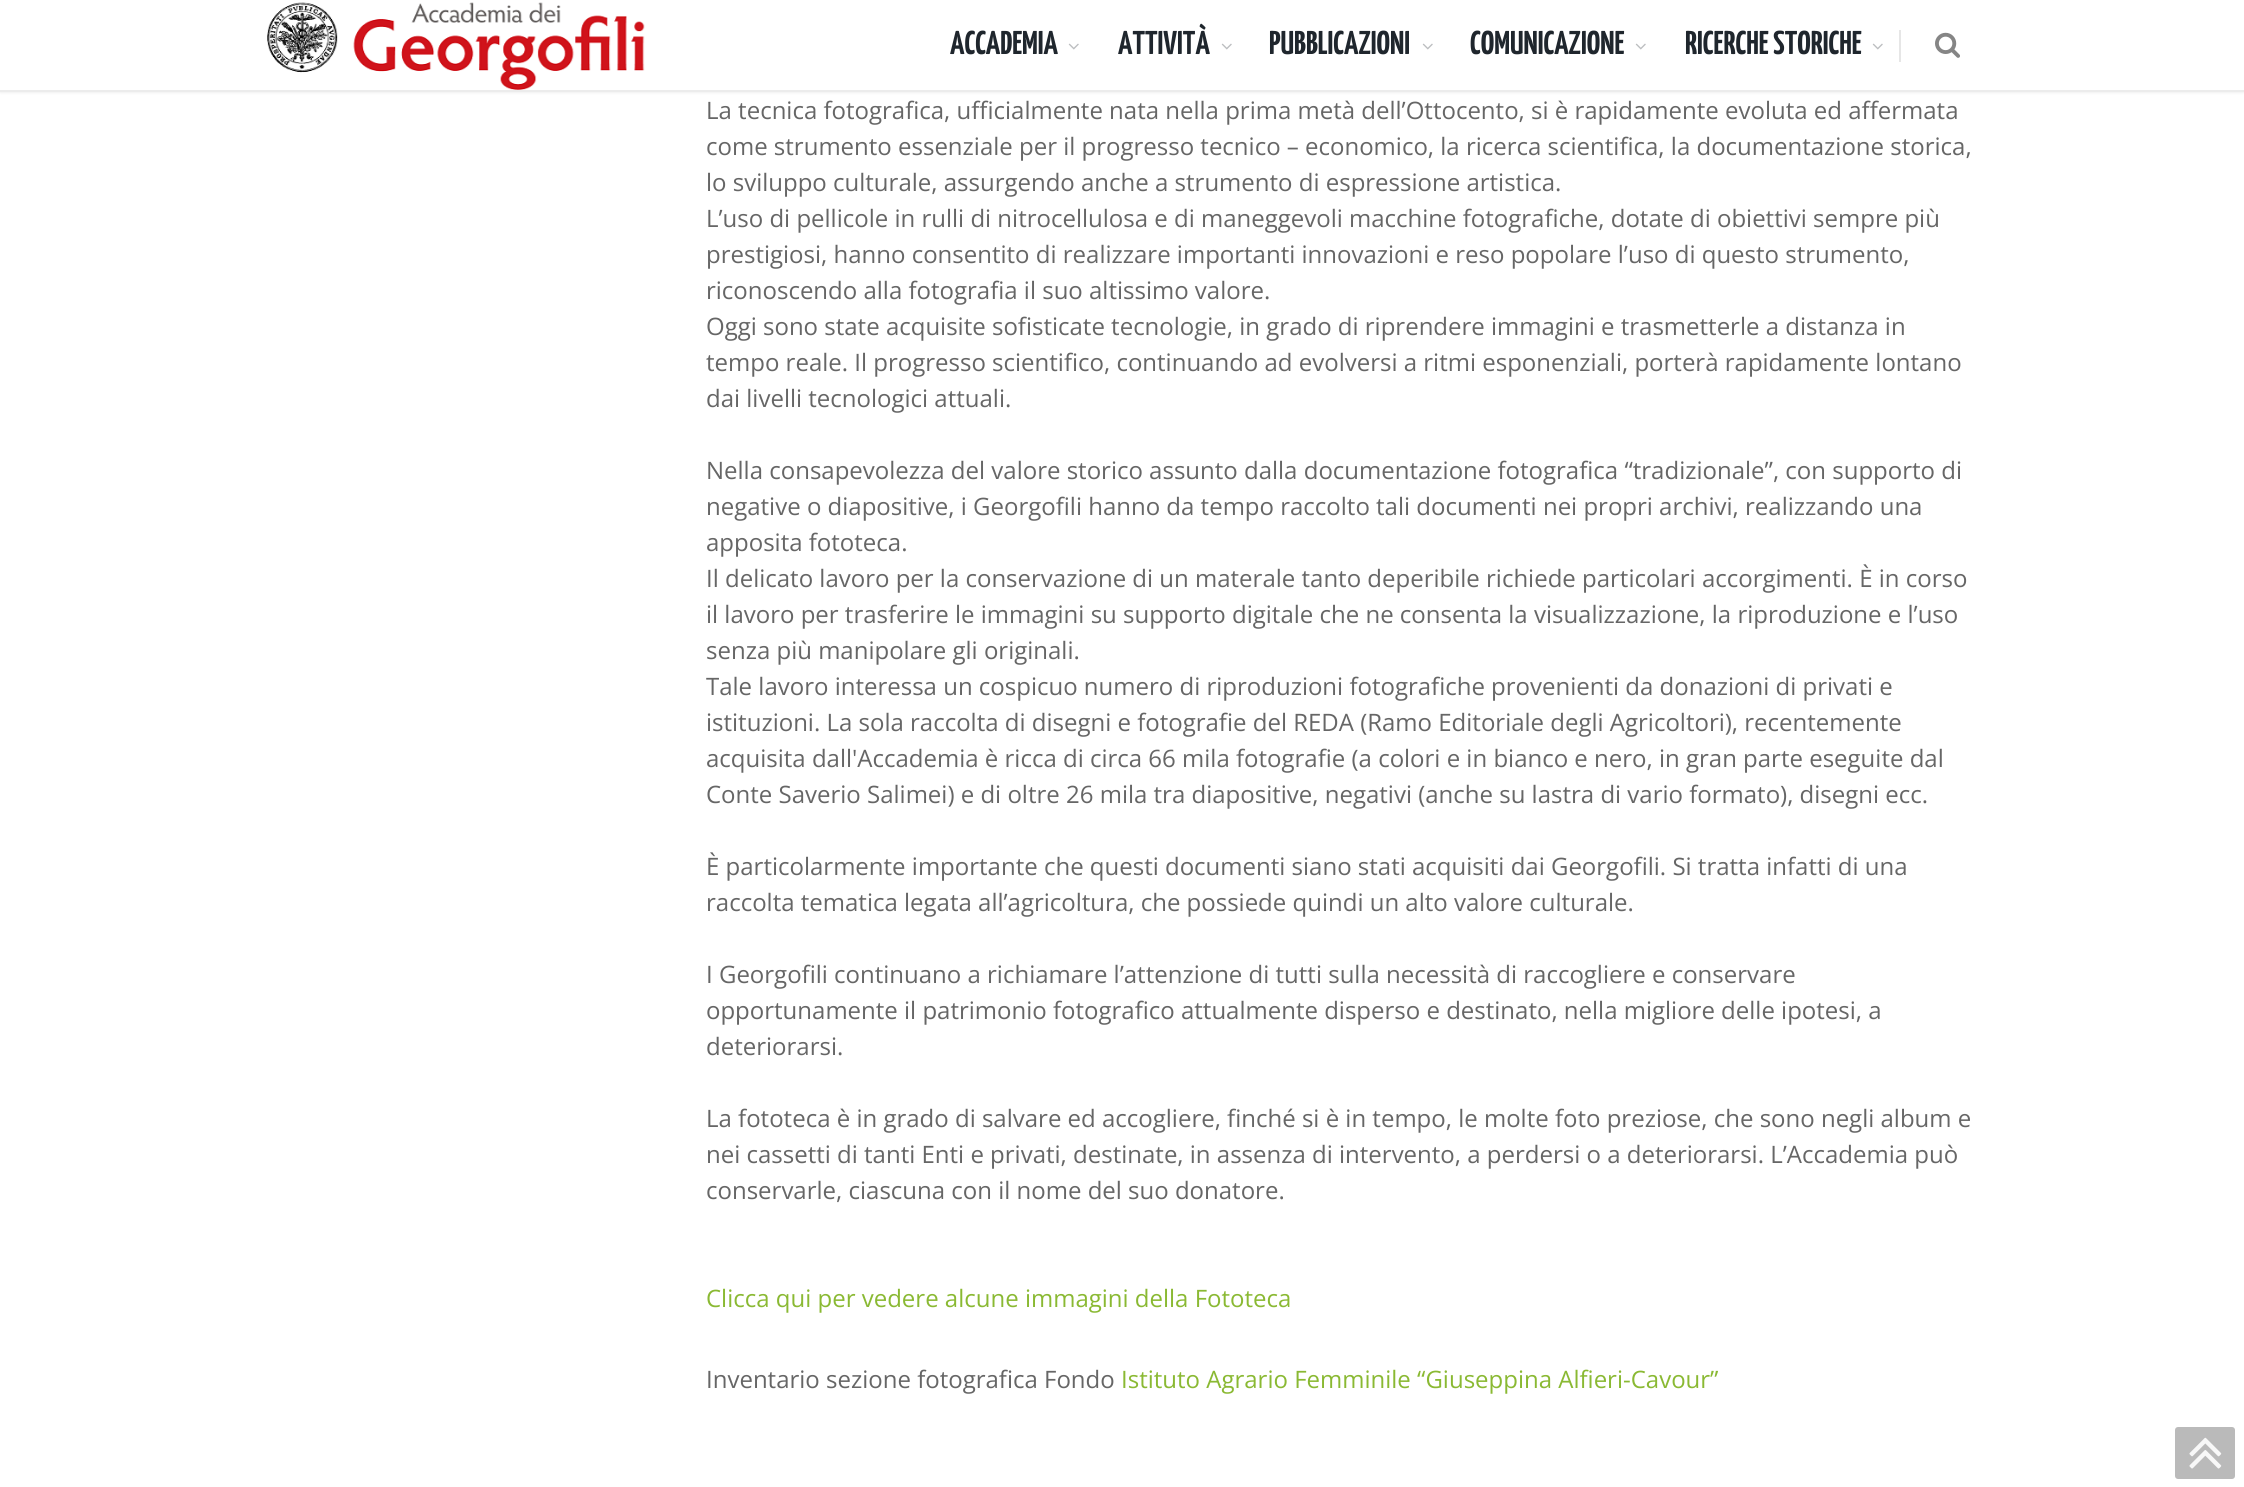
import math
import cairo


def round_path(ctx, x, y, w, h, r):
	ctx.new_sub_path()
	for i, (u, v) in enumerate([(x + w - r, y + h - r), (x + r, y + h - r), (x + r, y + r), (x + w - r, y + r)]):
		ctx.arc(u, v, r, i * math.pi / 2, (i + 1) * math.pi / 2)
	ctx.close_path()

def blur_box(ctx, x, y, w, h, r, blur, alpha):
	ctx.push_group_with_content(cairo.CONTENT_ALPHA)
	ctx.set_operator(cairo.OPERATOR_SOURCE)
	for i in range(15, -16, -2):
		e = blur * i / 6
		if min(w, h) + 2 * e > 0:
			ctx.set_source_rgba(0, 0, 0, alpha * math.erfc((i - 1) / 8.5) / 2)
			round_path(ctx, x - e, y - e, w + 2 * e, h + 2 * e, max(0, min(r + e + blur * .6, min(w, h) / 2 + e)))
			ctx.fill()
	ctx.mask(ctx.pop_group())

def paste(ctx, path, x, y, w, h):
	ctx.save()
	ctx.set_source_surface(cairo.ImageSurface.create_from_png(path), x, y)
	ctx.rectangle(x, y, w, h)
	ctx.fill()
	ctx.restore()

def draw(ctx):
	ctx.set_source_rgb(1, 1, 1)
	ctx.paint()
	ctx.set_source_rgb(0, 0, 0)
	blur_box(ctx, 0, 0, 2244, 92, 0, 1.5, 0.1)
	ctx.set_source_rgb(1, 1, 1)
	ctx.rectangle(0, 0, 2244, 90)
	ctx.fill()
	ctx.set_source_rgb(0.922, 0.922, 0.922)
	ctx.rectangle(0, 90, 2244, 2)
	ctx.fill()
	paste(ctx, 'media/1.png', 267, 2, 378, 88)
	ctx.select_font_face('Yanone Kaffeesatz', cairo.FONT_SLANT_NORMAL, cairo.FONT_WEIGHT_BOLD)
	ctx.set_font_size(33)
	ctx.set_source_rgb(0.122, 0.149, 0.176)
	ctx.move_to(950, 54)
	ctx.show_text('ACCADEMIA')
	paste(ctx, 'media/2.png', 1068, 43, 11, 7)
	ctx.move_to(1118, 54)
	ctx.show_text('ATTIVITÀ')
	paste(ctx, 'media/2.png', 1221, 43, 11, 7)
	ctx.move_to(1269, 54)
	ctx.show_text('PUBBLICAZIONI')
	paste(ctx, 'media/2.png', 1422, 43, 11, 7)
	ctx.move_to(1470, 54)
	ctx.show_text('COMUNICAZIONE')
	paste(ctx, 'media/2.png', 1635, 43, 11, 7)
	ctx.move_to(1685, 54)
	ctx.show_text('RICERCHE STORICHE')
	paste(ctx, 'media/2.png', 1872, 43, 11, 7)
	ctx.set_source_rgb(0.902, 0.902, 0.902)
	ctx.rectangle(1899, 30, 2, 32)
	ctx.fill()
	paste(ctx, 'media/3.png', 1935, 32, 25, 26)
	ctx.select_font_face('Open Sans')
	ctx.set_font_size(24)
	ctx.set_source_rgb(0.4, 0.4, 0.4)
	for x, y, s in [
		(706, 119, 'La tecnica fotografica, ufficialmente nata nella prima metà dell’Ottocento, si è rapidamente evoluta ed affermata'),
		(706, 155, 'come strumento essenziale per il progresso tecnico – economico, la ricerca scientifica, la documentazione storica,'),
		(706, 191, 'lo sviluppo culturale, assurgendo anche a strumento di espressione artistica.'),
		(706, 227, 'L’uso di pellicole in rulli di nitrocellulosa e di maneggevoli macchine fotografiche, dotate di obiettivi sempre più'),
		(706, 263, 'prestigiosi, hanno consentito di realizzare importanti innovazioni e reso popolare l’uso di questo strumento,'),
		(706, 299, 'riconoscendo alla fotografia il suo altissimo valore.'),
		(706, 335, 'Oggi sono state acquisite sofisticate tecnologie, in grado di riprendere immagini e trasmetterle a distanza in'),
		(706, 371, 'tempo reale. Il progresso scientifico, continuando ad evolversi a ritmi esponenziali, porterà rapidamente lontano'),
		(706, 407, 'dai livelli tecnologici attuali.'),
		(706, 479, 'Nella consapevolezza del valore storico assunto dalla documentazione fotografica “tradizionale”, con supporto di'),
		(706, 515, 'negative o diapositive, i Georgofili hanno da tempo raccolto tali documenti nei propri archivi, realizzando una'),
		(706, 551, 'apposita fototeca.'),
		(706, 587, 'Il delicato lavoro per la conservazione di un materale tanto deperibile richiede particolari accorgimenti. È in corso'),
		(706, 623, 'il lavoro per trasferire le immagini su supporto digitale che ne consenta la visualizzazione, la riproduzione e l’uso'),
		(706, 659, 'senza più manipolare gli originali.'),
		(706, 695, 'Tale lavoro interessa un cospicuo numero di riproduzioni fotografiche provenienti da donazioni di privati e'),
		(706, 731, 'istituzioni. La sola raccolta di disegni e fotografie del REDA (Ramo Editoriale degli Agricoltori), recentemente'),
		(706, 767, 'acquisita dall\'Accademia è ricca di circa 66 mila fotografie (a colori e in bianco e nero, in gran parte eseguite dal'),
		(706, 803, 'Conte Saverio Salimei) e di oltre 26 mila tra diapositive, negativi (anche su lastra di vario formato), disegni ecc.'),
		(706, 875, 'È particolarmente importante che questi documenti siano stati acquisiti dai Georgofili. Si tratta infatti di una'),
		(706, 911, 'raccolta tematica legata all’agricoltura, che possiede quindi un alto valore culturale.'),
		(706, 983, 'I Georgofili continuano a richiamare l’attenzione di tutti sulla necessità di raccogliere e conservare'),
		(706, 1019, 'opportunamente il patrimonio fotografico attualmente disperso e destinato, nella migliore delle ipotesi, a'),
		(706, 1055, 'deteriorarsi.'),
		(706, 1127, 'La fototeca è in grado di salvare ed accogliere, finché si è in tempo, le molte foto preziose, che sono negli album e'),
		(706, 1163, 'nei cassetti di tanti Enti e privati, destinate, in assenza di intervento, a perdersi o a deteriorarsi. L’Accademia può'),
		(706, 1199, 'conservarle, ciascuna con il nome del suo donatore.'),
	]:
		ctx.move_to(x, y)
		ctx.show_text(s)
	ctx.set_source_rgb(0.541, 0.725, 0.2)
	ctx.move_to(706, 1307)
	ctx.show_text('Clicca qui per vedere alcune immagini della Fototeca')
	ctx.set_source_rgb(0.4, 0.4, 0.4)
	ctx.move_to(706, 1388)
	ctx.show_text('Inventario sezione fotografica Fondo')
	ctx.set_source_rgb(0.541, 0.725, 0.2)
	ctx.move_to(1121, 1388)
	ctx.show_text('Istituto Agrario Femminile “Giuseppina Alfieri-Cavour”')
	ctx.set_source_rgb(0.729, 0.729, 0.729)
	round_path(ctx, 2175, 1427, 60, 52, 3)
	ctx.fill()
	paste(ctx, 'media/4.png', 2189, 1437, 33, 32)


surface = cairo.ImageSurface(cairo.FORMAT_RGB24, 2244, 1487)
ctx = cairo.Context(surface)
options = cairo.FontOptions()
options.set_hint_metrics(cairo.HINT_METRICS_OFF)
options.set_hint_style(cairo.HINT_STYLE_NONE)
ctx.set_font_options(options)
ctx.set_miter_limit(4)
draw(ctx)
surface.write_to_png('image.png')
